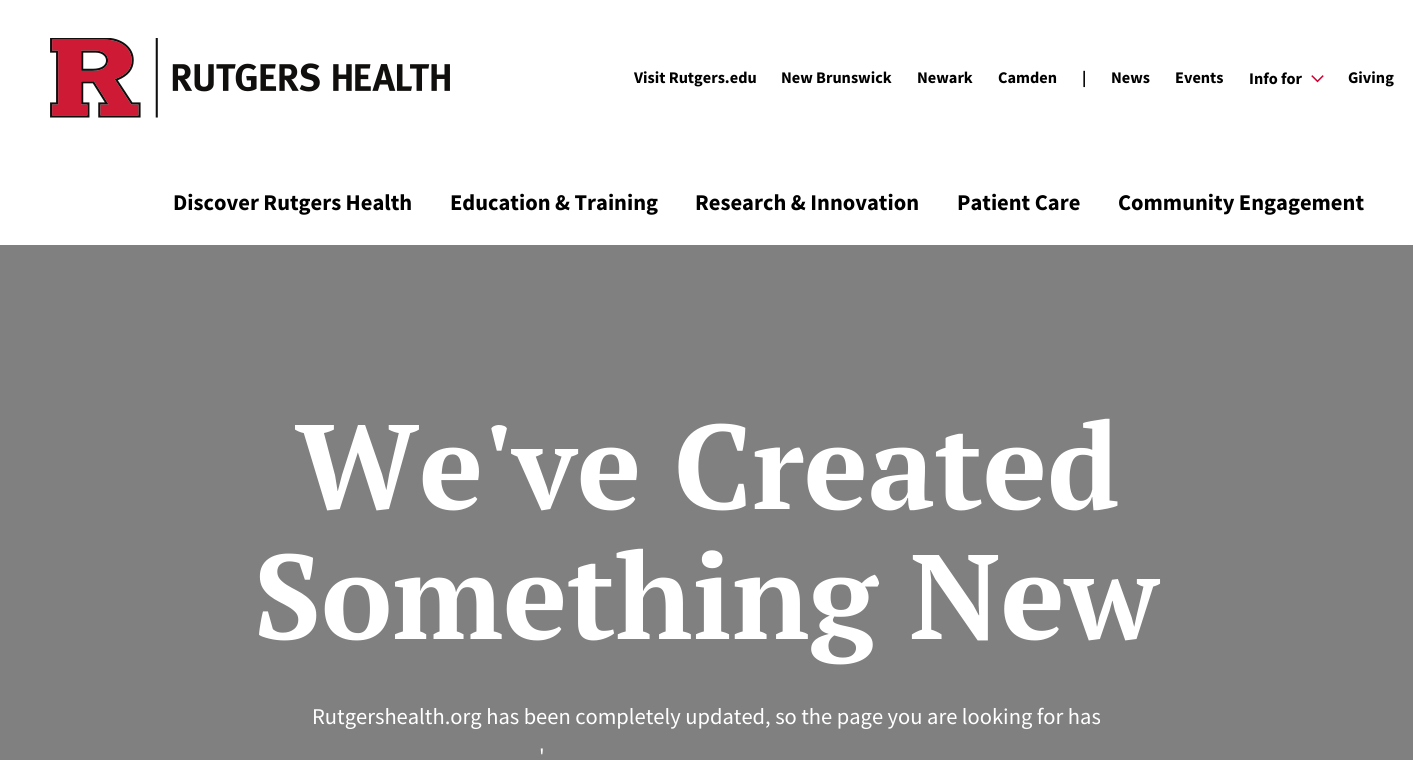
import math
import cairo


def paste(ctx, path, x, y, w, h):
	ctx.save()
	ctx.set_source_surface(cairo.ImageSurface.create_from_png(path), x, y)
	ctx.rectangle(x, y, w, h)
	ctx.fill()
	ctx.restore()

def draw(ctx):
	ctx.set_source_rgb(1, 1, 1)
	ctx.paint()
	paste(ctx, 'media/1.png', 50, 38, 400, 80)
	ctx.select_font_face('Source Sans Pro', cairo.FONT_SLANT_NORMAL, cairo.FONT_WEIGHT_BOLD)
	ctx.set_font_size(16.25)
	ctx.set_source_rgb(0, 0, 0)
	for x, y, s in [
		(634, 83, 'Visit Rutgers.edu'),
		(781, 83, 'New Brunswick'),
		(917, 83, 'Newark'),
		(998, 83, 'Camden'),
		(1082, 83, '|'),
		(1111, 83, 'News'),
		(1175, 83, 'Events'),
		(1249, 84, 'Info for'),
	]:
		ctx.move_to(x, y)
		ctx.show_text(s)
	paste(ctx, 'media/2.png', 1311, 75, 13, 8)
	ctx.move_to(1348, 83)
	ctx.show_text('Giving')
	ctx.set_font_size(22.5)
	for x, y, s in [
		(173, 210, 'Discover Rutgers Health'),
		(450, 210, 'Education & Training'),
		(695, 210, 'Research & Innovation'),
		(957, 210, 'Patient Care'),
		(1118, 210, 'Community Engagement'),
	]:
		ctx.move_to(x, y)
		ctx.show_text(s)
	ctx.set_source_rgb(0.502, 0.502, 0.502)
	ctx.rectangle(0, 245, 1413, 515)
	ctx.fill()
	ctx.select_font_face('PT Serif', cairo.FONT_SLANT_NORMAL, cairo.FONT_WEIGHT_BOLD)
	ctx.set_font_size(120)
	ctx.set_source_rgb(1, 1, 1)
	ctx.move_to(295, 509)
	ctx.show_text('We\'ve Created')
	ctx.move_to(254, 639)
	ctx.show_text('Something New')
	ctx.select_font_face('Source Sans Pro')
	ctx.set_font_size(22.5)
	ctx.move_to(312, 724)
	ctx.show_text('Rutgershealth.org has been completely updated, so the page you are looking for has')
	ctx.move_to(539, 764)
	ctx.show_text('\'')


surface = cairo.ImageSurface(cairo.FORMAT_RGB24, 1413, 760)
ctx = cairo.Context(surface)
options = cairo.FontOptions()
options.set_hint_metrics(cairo.HINT_METRICS_OFF)
options.set_hint_style(cairo.HINT_STYLE_NONE)
ctx.set_font_options(options)
ctx.set_miter_limit(4)
draw(ctx)
surface.write_to_png('image.png')
